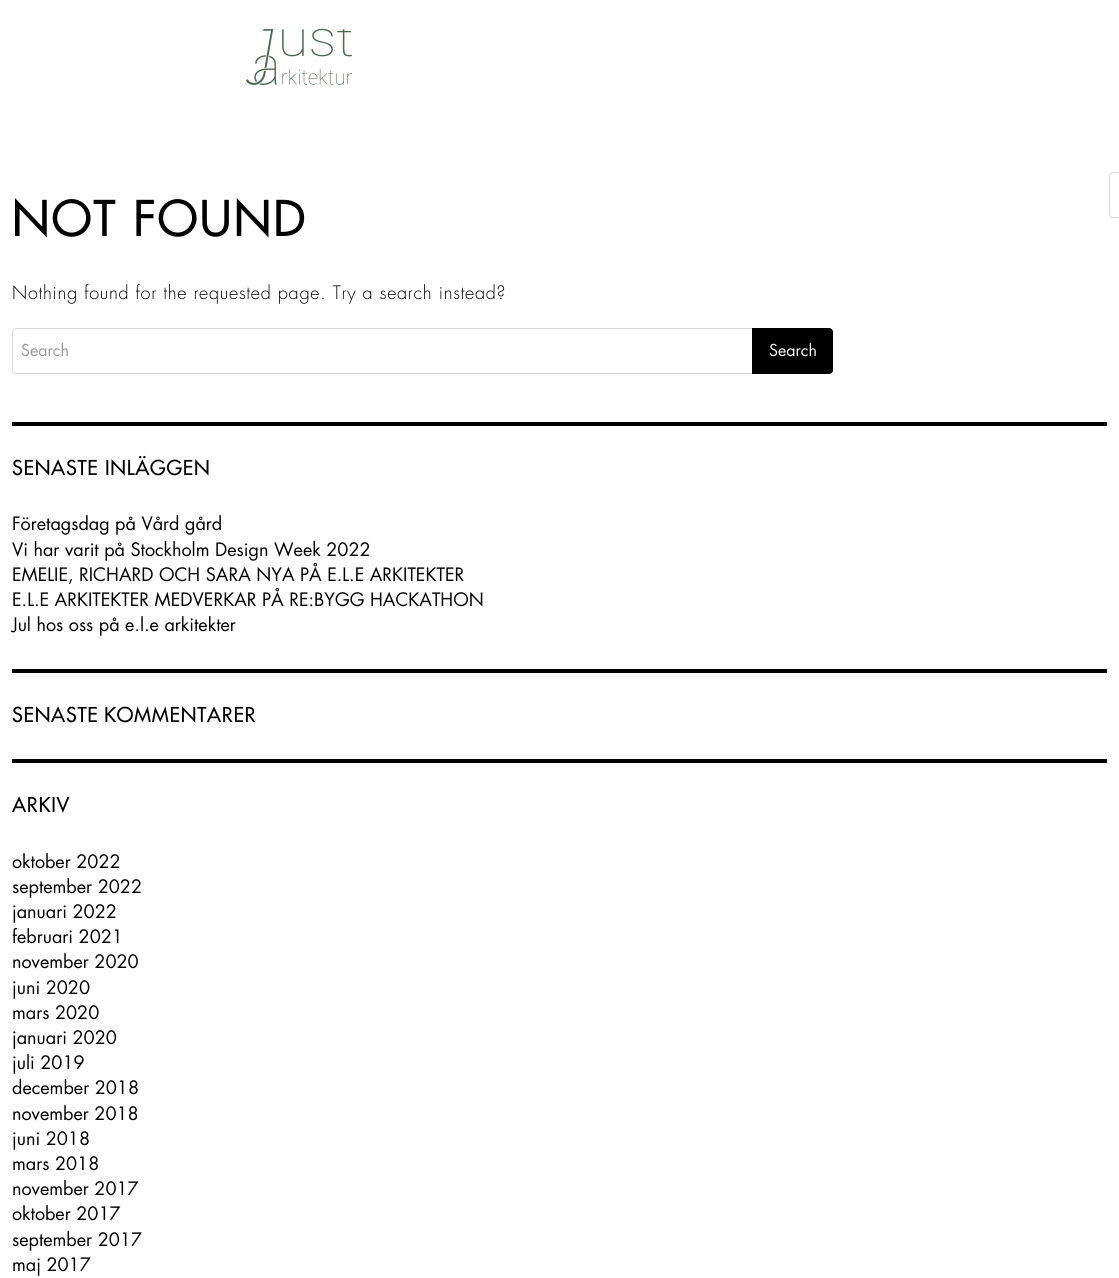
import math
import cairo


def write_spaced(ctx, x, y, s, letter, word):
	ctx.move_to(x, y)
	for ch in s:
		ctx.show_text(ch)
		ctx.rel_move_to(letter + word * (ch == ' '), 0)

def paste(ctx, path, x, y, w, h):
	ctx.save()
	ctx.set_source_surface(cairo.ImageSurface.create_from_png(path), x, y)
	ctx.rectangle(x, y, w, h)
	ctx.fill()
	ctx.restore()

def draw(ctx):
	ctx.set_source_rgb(1, 1, 1)
	ctx.paint()
	paste(ctx, 'media/1.png', 246, 28, 106, 57)
	ctx.select_font_face('Futura Medium')
	ctx.set_font_size(48)
	ctx.set_source_rgb(0, 0, 0)
	write_spaced(ctx, 12, 236, 'NOT FOUND', 2, 0)
	ctx.select_font_face('Futura Light')
	ctx.set_font_size(18)
	write_spaced(ctx, 12, 299, 'Nothing found for the requested page. Try a search instead?', 0.72, 0)
	ctx.new_path()
	ctx.move_to(16, 328.5)
	ctx.line_to(752.5, 328.5)
	ctx.line_to(752.5, 373.5)
	ctx.line_to(16, 373.5)
	ctx.curve_to(14, 373.5, 12.5, 372, 12.5, 370)
	ctx.line_to(12.5, 332)
	ctx.curve_to(12.5, 330, 14, 328.5, 16, 328.5)
	ctx.close_path()
	ctx.set_source_rgb(0.851, 0.851, 0.851)
	ctx.set_line_width(1)
	ctx.stroke()
	ctx.select_font_face('Futura')
	ctx.set_font_size(16)
	ctx.set_source_rgb(0.6, 0.6, 0.6)
	ctx.move_to(21, 356)
	ctx.show_text('Search')
	ctx.set_source_rgb(0, 0, 0)
	ctx.new_path()
	ctx.move_to(752.5, 328.5)
	ctx.line_to(829, 328.5)
	ctx.curve_to(831, 328.5, 832.5, 330, 832.5, 332)
	ctx.line_to(832.5, 370)
	ctx.curve_to(832.5, 372, 831, 373.5, 829, 373.5)
	ctx.line_to(752.5, 373.5)
	ctx.close_path()
	ctx.fill_preserve()
	ctx.stroke()
	ctx.set_source_rgb(1, 1, 1)
	ctx.move_to(769, 356)
	ctx.show_text('Search')
	ctx.new_path()
	ctx.move_to(1113, 172.5)
	ctx.line_to(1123.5, 172.5)
	ctx.line_to(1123.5, 217.5)
	ctx.line_to(1113, 217.5)
	ctx.curve_to(1111, 217.5, 1109.5, 216, 1109.5, 214)
	ctx.line_to(1109.5, 176)
	ctx.curve_to(1109.5, 174, 1111, 172.5, 1113, 172.5)
	ctx.close_path()
	ctx.set_source_rgb(0.851, 0.851, 0.851)
	ctx.stroke()
	ctx.set_source_rgb(0, 0, 0)
	ctx.rectangle(12, 422, 1095, 4)
	ctx.fill()
	ctx.select_font_face('Futura Medium')
	ctx.set_font_size(20)
	write_spaced(ctx, 12, 475, 'SENASTE INLÄGGEN', 0.75, 0)
	ctx.select_font_face('Futura')
	ctx.set_font_size(18)
	for x, y, s in [
		(12, 530, 'Företagsdag på Vård gård'),
		(12, 556, 'Vi har varit på Stockholm Design Week 2022'),
		(12, 581, 'EMELIE, RICHARD OCH SARA NYA PÅ E.L.E ARKITEKTER'),
		(12, 606, 'E.L.E ARKITEKTER MEDVERKAR PÅ RE:BYGG HACKATHON'),
		(12, 631, 'Jul hos oss på e.l.e arkitekter'),
	]:
		ctx.move_to(x, y)
		ctx.show_text(s)
	ctx.rectangle(12, 669, 1095, 4)
	ctx.fill()
	ctx.select_font_face('Futura Medium')
	ctx.set_font_size(20)
	write_spaced(ctx, 12, 722, 'SENASTE KOMMENTARER', 0.75, -1)
	ctx.rectangle(12, 759, 1095, 4)
	ctx.fill()
	write_spaced(ctx, 12, 812, 'ARKIV', 0.75, 0)
	ctx.select_font_face('Futura')
	ctx.set_font_size(18)
	for x, y, s in [
		(12, 868, 'oktober 2022'),
		(12, 893, 'september 2022'),
		(12, 918, 'januari 2022'),
		(12, 943, 'februari 2021'),
		(12, 968, 'november 2020'),
		(12, 994, 'juni 2020'),
		(12, 1019, 'mars 2020'),
		(12, 1044, 'januari 2020'),
		(12, 1069, 'juli 2019'),
		(12, 1094, 'december 2018'),
		(12, 1120, 'november 2018'),
		(12, 1145, 'juni 2018'),
		(12, 1170, 'mars 2018'),
		(12, 1195, 'november 2017'),
		(12, 1220, 'oktober 2017'),
		(12, 1246, 'september 2017'),
		(12, 1271, 'maj 2017'),
	]:
		ctx.move_to(x, y)
		ctx.show_text(s)


surface = cairo.ImageSurface(cairo.FORMAT_RGB24, 1119, 1278)
ctx = cairo.Context(surface)
options = cairo.FontOptions()
options.set_hint_metrics(cairo.HINT_METRICS_OFF)
options.set_hint_style(cairo.HINT_STYLE_NONE)
ctx.set_font_options(options)
ctx.set_miter_limit(4)
draw(ctx)
surface.write_to_png('image.png')
